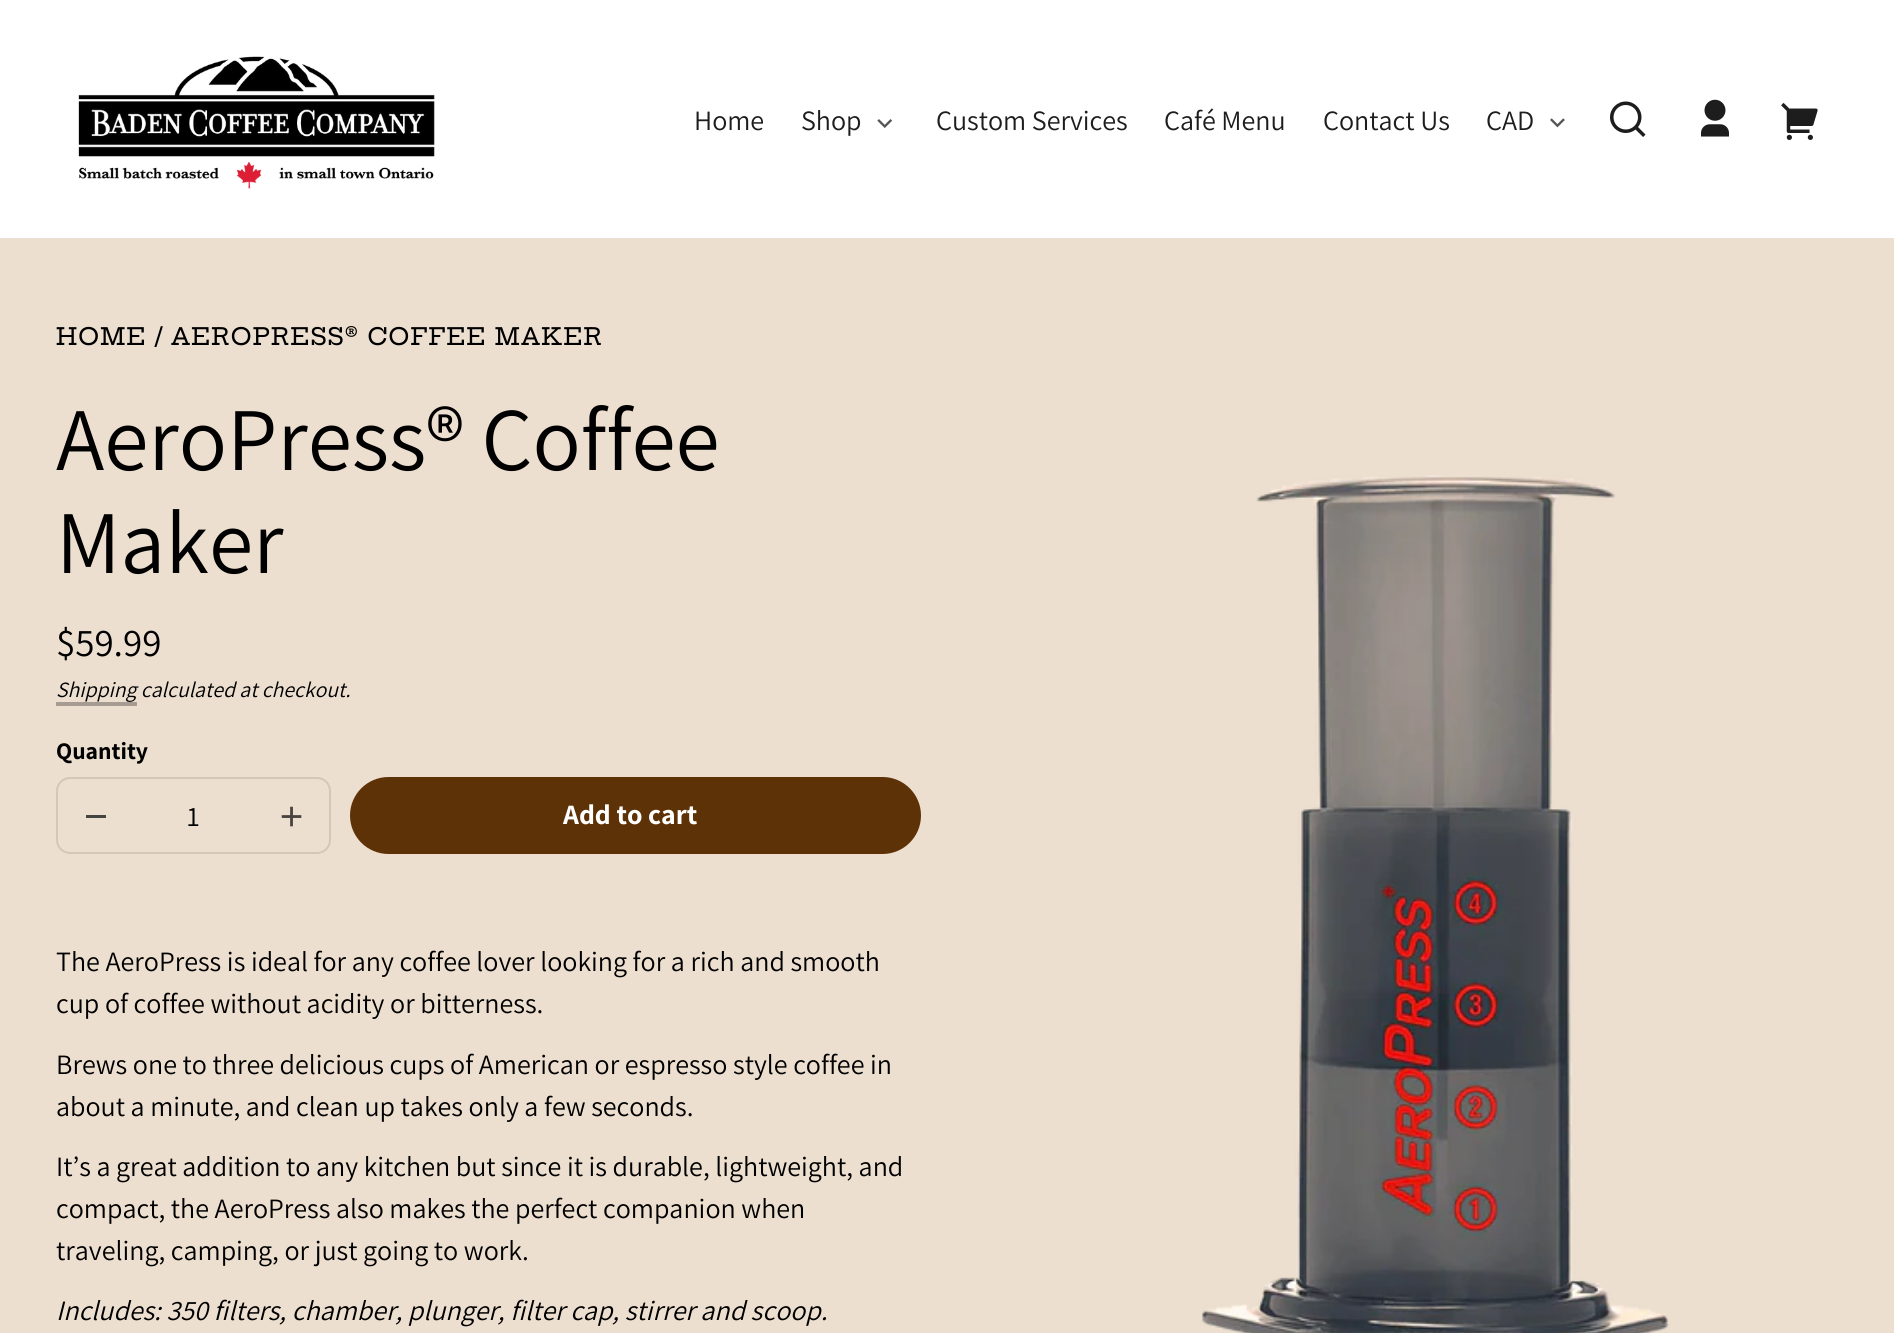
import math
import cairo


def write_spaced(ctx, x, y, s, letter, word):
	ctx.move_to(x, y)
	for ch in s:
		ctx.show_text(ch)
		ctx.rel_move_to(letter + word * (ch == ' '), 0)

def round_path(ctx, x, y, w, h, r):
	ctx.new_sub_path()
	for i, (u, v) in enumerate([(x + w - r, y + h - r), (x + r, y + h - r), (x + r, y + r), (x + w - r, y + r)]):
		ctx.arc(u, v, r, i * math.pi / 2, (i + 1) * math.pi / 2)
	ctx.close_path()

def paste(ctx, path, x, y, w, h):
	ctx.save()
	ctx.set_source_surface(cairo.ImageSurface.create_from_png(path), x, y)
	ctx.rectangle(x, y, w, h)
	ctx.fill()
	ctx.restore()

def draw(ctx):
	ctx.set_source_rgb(0.929, 0.875, 0.812)
	ctx.paint()
	ctx.set_source_rgb(1, 1, 1)
	ctx.rectangle(0, 0, 1894, 238)
	ctx.fill()
	paste(ctx, 'media/1.png', 78, 56, 357, 133)
	ctx.select_font_face('Assistant')
	ctx.set_font_size(28)
	ctx.set_source_rgb(0.11, 0.114, 0.11)
	ctx.move_to(694, 130)
	ctx.show_text('Home')
	ctx.move_to(801, 130)
	ctx.show_text('Shop')
	paste(ctx, 'media/2.png', 877, 119, 15, 9)
	for x, y, s in [
		(936, 130, 'Custom Services'),
		(1164, 130, 'Café Menu'),
		(1323, 130, 'Contact Us'),
		(1486, 130, 'CAD'),
	]:
		ctx.move_to(x, y)
		ctx.show_text(s)
	paste(ctx, 'media/3.png', 1550, 118, 15, 10)
	paste(ctx, 'media/4.png', 1610, 101, 36, 36)
	paste(ctx, 'media/5.png', 1701, 99, 28, 38)
	paste(ctx, 'media/6.png', 1781, 102, 37, 38)
	ctx.select_font_face('Hepta Slab Medium')
	ctx.set_font_size(23.75)
	ctx.set_source_rgb(0, 0, 0)
	for x, y, s in [
		(56, 345, 'HOME'),
		(154, 345, '/'),
		(171, 345, 'AEROPRESS® COFFEE MAKER'),
	]:
		write_spaced(ctx, x, y, s, 1.2, 0)
	ctx.select_font_face('Assistant')
	ctx.set_font_size(89.5)
	ctx.move_to(56, 470)
	ctx.show_text('AeroPress® Coffee')
	ctx.move_to(56, 573)
	ctx.show_text('Maker')
	ctx.set_font_size(39)
	ctx.move_to(56, 656)
	ctx.show_text('$59.99')
	ctx.select_font_face('Assistant', cairo.FONT_SLANT_ITALIC)
	ctx.set_font_size(21.75)
	ctx.move_to(56, 697)
	ctx.show_text('Shipping calculated at checkout.')
	ctx.set_source_rgb(0.651, 0.612, 0.569)
	ctx.rectangle(56, 702, 81, 4)
	ctx.fill()
	ctx.select_font_face('Assistant', cairo.FONT_SLANT_NORMAL, cairo.FONT_WEIGHT_BOLD)
	ctx.set_font_size(23.75)
	ctx.set_source_rgb(0, 0, 0)
	ctx.move_to(56, 759)
	ctx.show_text('Quantity')
	round_path(ctx, 57, 778, 273, 75, 13)
	ctx.set_source_rgb(0.827, 0.78, 0.718)
	ctx.stroke()
	ctx.set_source_rgb(0.278, 0.263, 0.243)
	ctx.rectangle(86, 815, 20, 3)
	ctx.fill()
	ctx.select_font_face('Assistant')
	ctx.set_font_size(28)
	ctx.set_source_rgb(0, 0, 0)
	ctx.move_to(187, 826)
	ctx.show_text('1')
	paste(ctx, 'media/7.png', 281, 806, 21, 21)
	ctx.set_source_rgb(0.369, 0.196, 0.031)
	round_path(ctx, 350, 777, 571, 77, 38.5)
	ctx.fill()
	ctx.select_font_face('Assistant', cairo.FONT_SLANT_NORMAL, cairo.FONT_WEIGHT_BOLD)
	ctx.set_source_rgb(1, 1, 1)
	ctx.move_to(563, 824)
	ctx.show_text('Add to cart')
	ctx.select_font_face('Assistant')
	ctx.set_source_rgb(0, 0, 0)
	for x, y, s in [
		(56, 971, 'The AeroPress is ideal for any coffee lover looking for a rich and smooth'),
		(56, 1013, 'cup of coffee without acidity or bitterness.'),
		(56, 1074, 'Brews one to three delicious cups of American or espresso style coffee in'),
		(56, 1116, 'about a minute, and clean up takes only a few seconds.'),
		(56, 1176, 'It’s a great addition to any kitchen but since it is durable, lightweight, and'),
		(56, 1218, 'compact, the AeroPress also makes the perfect companion when'),
		(56, 1260, 'traveling, camping, or just going to work.'),
	]:
		ctx.move_to(x, y)
		ctx.show_text(s)
	ctx.select_font_face('Assistant', cairo.FONT_SLANT_ITALIC)
	ctx.move_to(56, 1320)
	ctx.show_text('Includes: 350 filters, chamber, plunger, filter cap, stirrer and scoop.')
	paste(ctx, 'media/8.png', 1201, 475, 469, 858)


surface = cairo.ImageSurface(cairo.FORMAT_RGB24, 1894, 1333)
ctx = cairo.Context(surface)
options = cairo.FontOptions()
options.set_hint_metrics(cairo.HINT_METRICS_OFF)
options.set_hint_style(cairo.HINT_STYLE_NONE)
ctx.set_font_options(options)
ctx.set_miter_limit(4)
draw(ctx)
surface.write_to_png('image.png')
